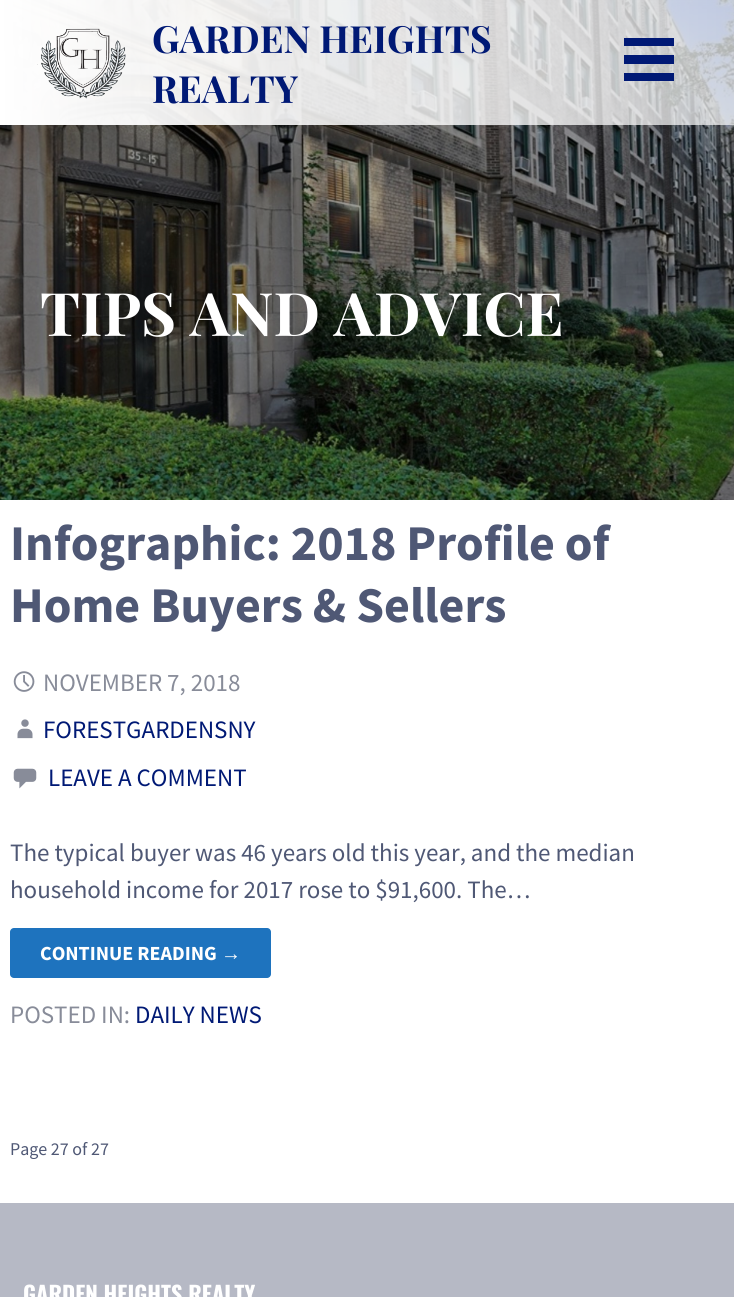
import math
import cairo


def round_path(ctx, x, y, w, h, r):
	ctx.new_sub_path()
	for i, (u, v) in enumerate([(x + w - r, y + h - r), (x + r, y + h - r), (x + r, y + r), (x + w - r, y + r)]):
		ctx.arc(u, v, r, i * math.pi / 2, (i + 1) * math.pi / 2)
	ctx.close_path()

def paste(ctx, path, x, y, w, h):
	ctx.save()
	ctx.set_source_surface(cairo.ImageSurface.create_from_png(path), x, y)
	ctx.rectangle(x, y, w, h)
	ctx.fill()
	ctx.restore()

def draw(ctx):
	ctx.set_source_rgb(1, 1, 1)
	ctx.paint()
	paste(ctx, 'media/2.png', 0, 0, 734, 500)
	paste(ctx, 'media/1.png', 37, 28, 89, 71)
	ctx.select_font_face('Playfair Display', cairo.FONT_SLANT_NORMAL, cairo.FONT_WEIGHT_BOLD)
	ctx.set_font_size(37.5)
	ctx.set_source_rgb(0, 0.098, 0.459)
	ctx.move_to(152, 53)
	ctx.show_text('GARDEN HEIGHTS')
	ctx.move_to(152, 103)
	ctx.show_text('REALTY')
	ctx.rectangle(624, 38, 50, 8)
	ctx.rectangle(624, 55, 50, 9)
	ctx.rectangle(624, 73, 50, 8)
	ctx.fill()
	ctx.set_font_size(60)
	ctx.set_source_rgb(1, 1, 1)
	ctx.move_to(40, 336)
	ctx.show_text('TIPS AND ADVICE')
	ctx.select_font_face('Source Sans Pro', cairo.FONT_SLANT_NORMAL, cairo.FONT_WEIGHT_BOLD)
	ctx.set_font_size(50)
	ctx.set_source_rgb(0.31, 0.345, 0.459)
	ctx.move_to(10, 560)
	ctx.show_text('Infographic: 2018 Profile of')
	ctx.move_to(10, 622)
	ctx.show_text('Home Buyers & Sellers')
	paste(ctx, 'media/3.png', 13, 671, 22, 21)
	ctx.select_font_face('Source Sans Pro')
	ctx.set_font_size(25)
	ctx.set_source_rgb(0.533, 0.549, 0.6)
	ctx.move_to(43, 691)
	ctx.show_text('NOVEMBER 7, 2018')
	paste(ctx, 'media/4.png', 17, 719, 16, 20)
	ctx.set_source_rgb(0, 0.098, 0.459)
	ctx.move_to(43, 738)
	ctx.show_text('FORESTGARDENSNY')
	paste(ctx, 'media/5.png', 13, 768, 24, 21)
	ctx.move_to(48, 786)
	ctx.show_text('LEAVE A COMMENT')
	ctx.set_source_rgb(0.31, 0.345, 0.459)
	ctx.move_to(10, 861)
	ctx.show_text('The typical buyer was 46 years old this year, and the median')
	ctx.move_to(10, 898)
	ctx.show_text('household income for 2017 rose to $91,600. The…')
	ctx.set_source_rgb(0.118, 0.451, 0.745)
	round_path(ctx, 10, 928, 261, 50, 4)
	ctx.fill()
	ctx.select_font_face('Source Sans Pro', cairo.FONT_SLANT_NORMAL, cairo.FONT_WEIGHT_BOLD)
	ctx.set_font_size(20)
	ctx.set_source_rgb(1, 1, 1)
	ctx.move_to(40, 960)
	ctx.show_text('CONTINUE READING')
	ctx.select_font_face('Liberation Sans', cairo.FONT_SLANT_NORMAL, cairo.FONT_WEIGHT_BOLD)
	ctx.move_to(221, 960)
	ctx.show_text('→')
	ctx.select_font_face('Source Sans Pro')
	ctx.set_font_size(25)
	ctx.set_source_rgb(0.533, 0.549, 0.6)
	ctx.move_to(10, 1023)
	ctx.show_text('POSTED IN:')
	ctx.set_source_rgb(0, 0.098, 0.459)
	ctx.move_to(135, 1023)
	ctx.show_text('DAILY NEWS')
	ctx.set_font_size(18)
	ctx.set_source_rgb(0.31, 0.345, 0.459)
	ctx.move_to(10, 1155)
	ctx.show_text('Page 27 of 27')
	ctx.set_source_rgb(0.714, 0.725, 0.773)
	ctx.rectangle(0, 1203, 734, 94)
	ctx.fill()
	ctx.select_font_face('Oswald', cairo.FONT_SLANT_NORMAL, cairo.FONT_WEIGHT_BOLD)
	ctx.set_font_size(22.5)
	ctx.set_source_rgb(1, 1, 1)
	ctx.move_to(23, 1303)
	ctx.show_text('GARDEN HEIGHTS REALTY')


surface = cairo.ImageSurface(cairo.FORMAT_RGB24, 734, 1297)
ctx = cairo.Context(surface)
options = cairo.FontOptions()
options.set_hint_metrics(cairo.HINT_METRICS_OFF)
options.set_hint_style(cairo.HINT_STYLE_NONE)
ctx.set_font_options(options)
ctx.set_miter_limit(4)
draw(ctx)
surface.write_to_png('image.png')
